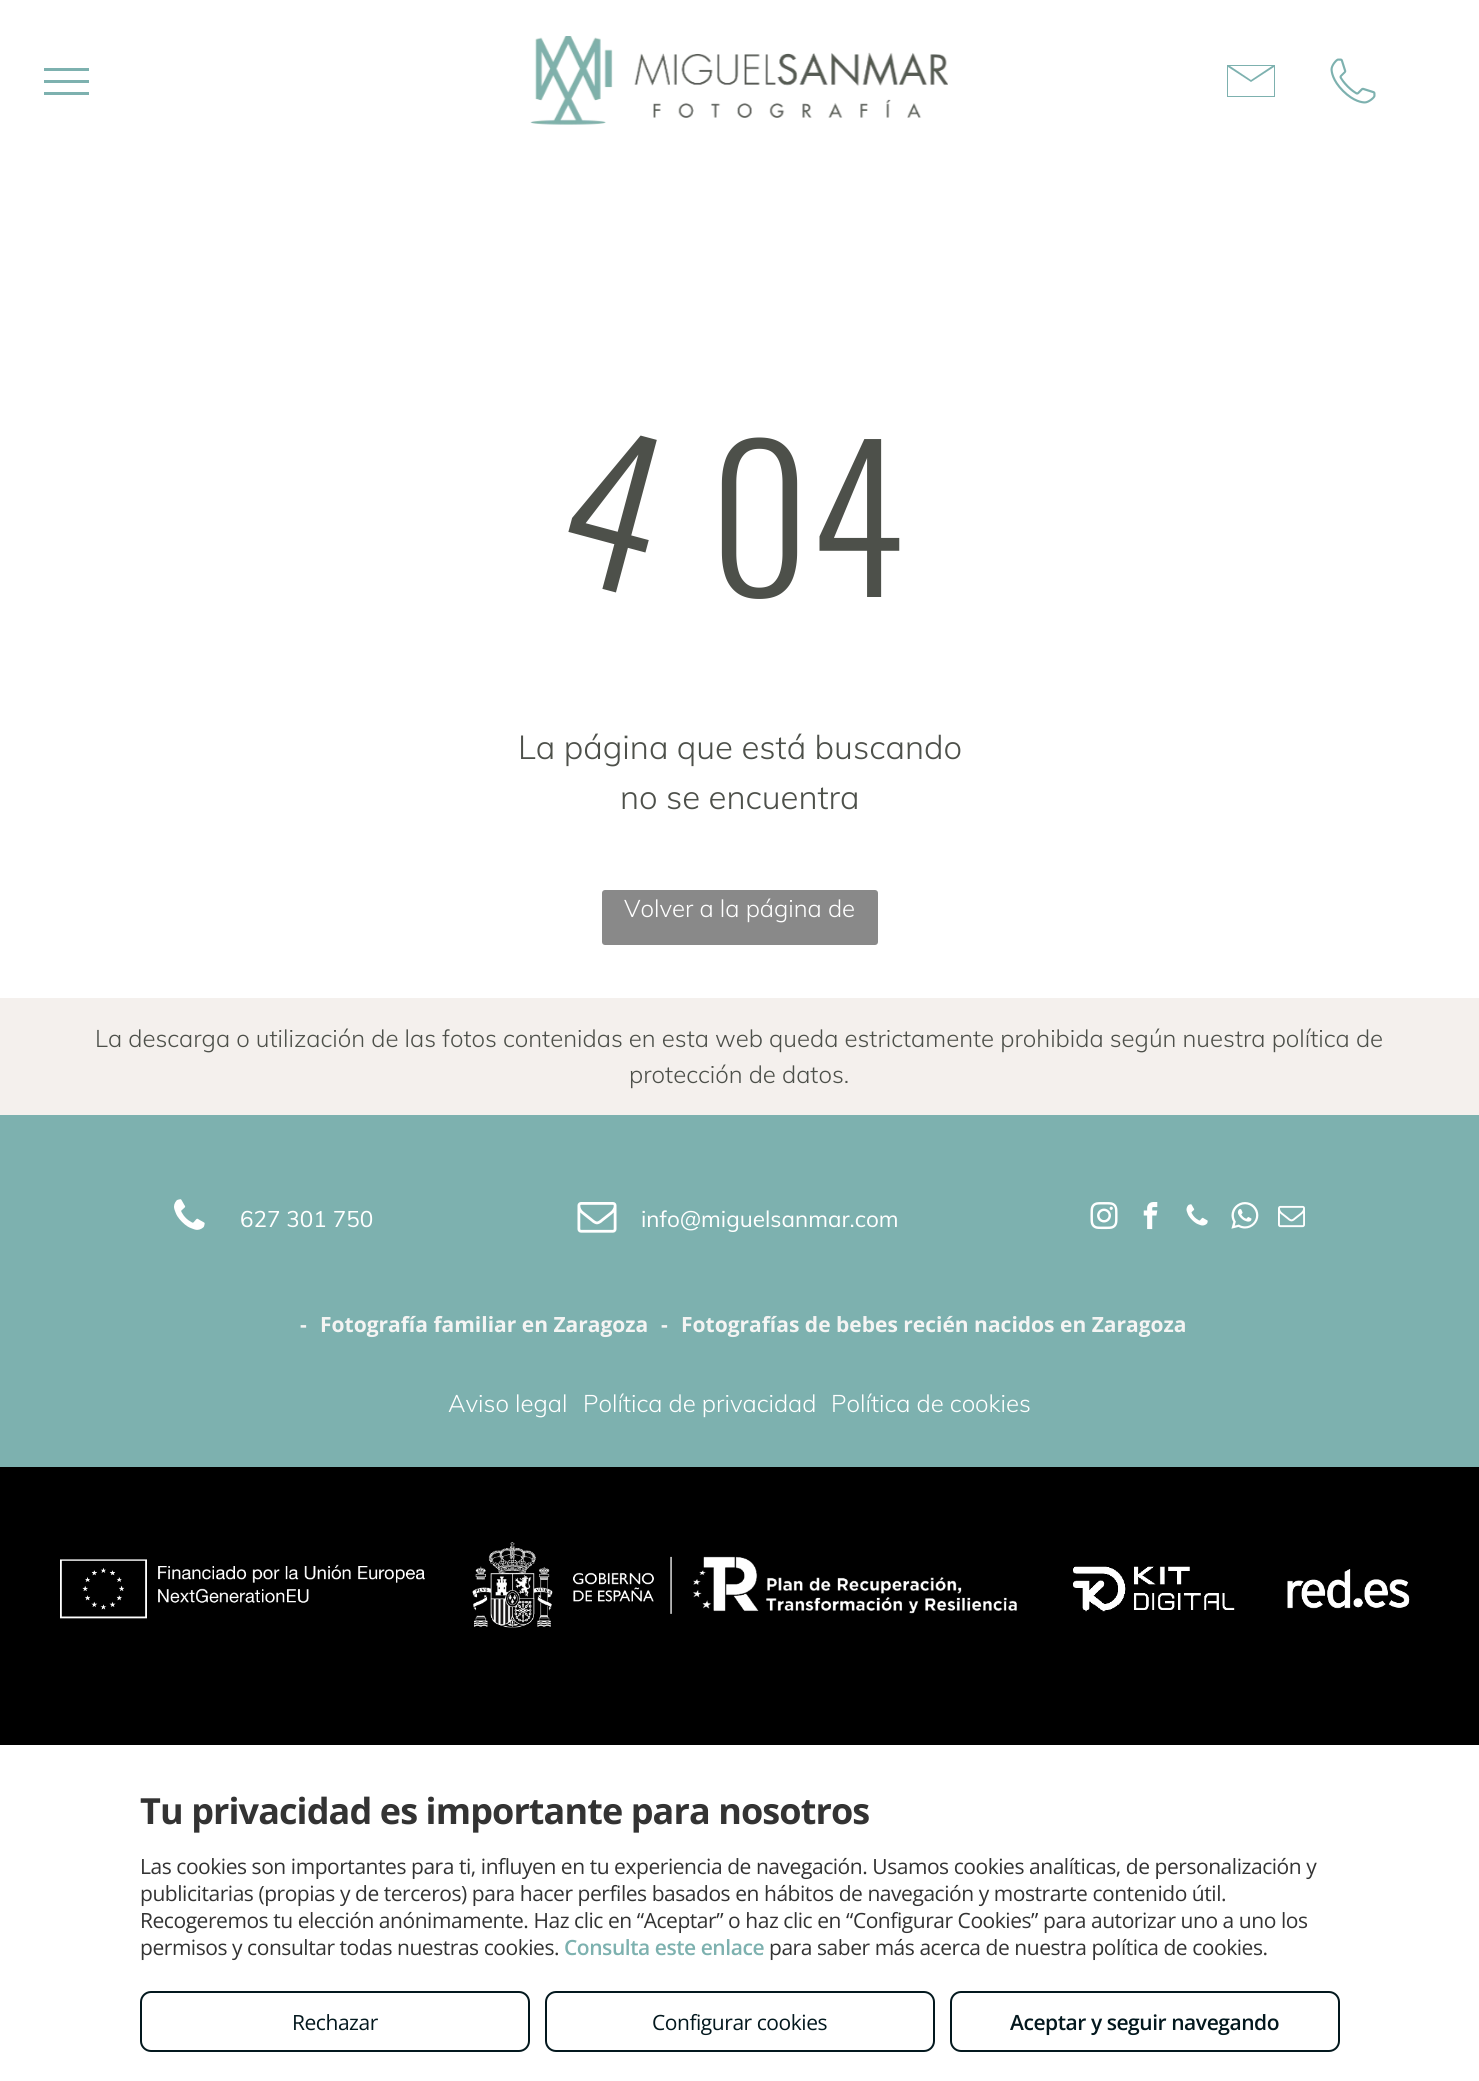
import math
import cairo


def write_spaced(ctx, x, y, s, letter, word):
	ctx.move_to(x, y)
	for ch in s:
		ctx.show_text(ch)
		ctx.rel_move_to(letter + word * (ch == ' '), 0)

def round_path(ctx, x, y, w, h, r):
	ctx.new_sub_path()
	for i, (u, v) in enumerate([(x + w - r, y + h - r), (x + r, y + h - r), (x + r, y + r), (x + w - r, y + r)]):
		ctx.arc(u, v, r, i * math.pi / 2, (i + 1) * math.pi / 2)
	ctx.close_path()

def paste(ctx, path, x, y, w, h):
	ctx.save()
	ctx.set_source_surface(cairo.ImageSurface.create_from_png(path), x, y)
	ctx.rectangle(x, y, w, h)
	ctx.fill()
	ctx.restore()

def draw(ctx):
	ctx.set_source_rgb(1, 1, 1)
	ctx.paint()
	ctx.set_source_rgb(0.49, 0.694, 0.686)
	ctx.rectangle(44, 68, 45, 3)
	ctx.rectangle(44, 80, 45, 3)
	ctx.rectangle(44, 92, 45, 3)
	ctx.fill()
	paste(ctx, 'media/1.png', 530, 36, 418, 89)
	ctx.new_path()
	ctx.move_to(1227, 65)
	ctx.line_to(1227, 97)
	ctx.line_to(1275, 97)
	ctx.line_to(1275, 65)
	ctx.close_path()
	ctx.move_to(1272, 66)
	ctx.line_to(1251, 80)
	ctx.line_to(1230, 66)
	ctx.close_path()
	ctx.move_to(1228, 96)
	ctx.line_to(1228, 67)
	ctx.line_to(1251, 82)
	ctx.line_to(1274, 67)
	ctx.line_to(1274, 96)
	ctx.close_path()
	ctx.fill()
	paste(ctx, 'media/2.png', 1330, 58, 46, 46)
	ctx.select_font_face('Oswald Light')
	ctx.set_font_size(195)
	ctx.set_source_rgb(0.302, 0.314, 0.29)
	ctx.save()
	ctx.translate(547, 574)
	ctx.rotate(15 * math.pi / 180)
	ctx.move_to(0, 0)
	ctx.show_text('4')
	ctx.restore()
	ctx.move_to(709, 597)
	ctx.show_text('04')
	ctx.select_font_face('Muli Light')
	ctx.set_font_size(33)
	ctx.move_to(518, 759)
	ctx.show_text('La página que está buscando')
	ctx.move_to(620, 809)
	ctx.show_text('no se encuentra')
	ctx.set_source_rgb(0.537, 0.537, 0.537)
	round_path(ctx, 602, 890, 276, 55, 3)
	ctx.fill()
	ctx.set_font_size(24)
	ctx.set_source_rgb(1, 1, 1)
	ctx.move_to(624, 917)
	ctx.show_text('Volver a la página de')
	ctx.set_source_rgb(0.49, 0.694, 0.686)
	ctx.rectangle(0, 1115, 1479, 352)
	ctx.fill()
	ctx.set_source_rgb(0.957, 0.941, 0.929)
	ctx.rectangle(0, 998, 1479, 117)
	ctx.fill()
	ctx.set_source_rgb(0.302, 0.314, 0.29)
	ctx.move_to(95, 1047)
	ctx.show_text('La descarga o utilización de las fotos contenidas en esta web queda estrictamente prohibida según nuestra política de')
	ctx.move_to(629, 1083)
	ctx.show_text('protección de datos.')
	paste(ctx, 'media/3.png', 174, 1199, 31, 31)
	ctx.select_font_face('Muli')
	ctx.set_font_size(22.5)
	ctx.set_source_rgb(1, 1, 1)
	ctx.move_to(240, 1227)
	ctx.show_text('627 301 750')
	paste(ctx, 'media/4.png', 577, 1202, 40, 31)
	ctx.move_to(641, 1227)
	ctx.show_text('info@miguelsanmar.com')
	paste(ctx, 'media/5.png', 1090, 1202, 28, 28)
	paste(ctx, 'media/6.png', 1143, 1202, 15, 28)
	paste(ctx, 'media/7.png', 1186, 1204, 22, 22)
	paste(ctx, 'media/8.png', 1231, 1202, 28, 27)
	paste(ctx, 'media/9.png', 1278, 1205, 27, 23)
	ctx.select_font_face('Open Sans', cairo.FONT_SLANT_NORMAL, cairo.FONT_WEIGHT_BOLD)
	ctx.set_font_size(21)
	ctx.set_source_rgb(0.957, 0.957, 0.953)
	for x, y, s in [
		(300, 1332, '-'),
		(320, 1332, 'Fotografía familiar en Zaragoza'),
		(661, 1332, '-'),
		(681, 1332, 'Fotografías de bebes recién nacidos en Zaragoza'),
	]:
		ctx.move_to(x, y)
		ctx.show_text(s)
	ctx.select_font_face('Muli Light')
	ctx.set_font_size(24)
	ctx.set_source_rgb(1, 1, 1)
	for x, y, s in [
		(448, 1412, 'Aviso legal'),
		(583, 1412, 'Política de privacidad'),
		(831, 1412, 'Política de cookies'),
	]:
		ctx.move_to(x, y)
		ctx.show_text(s)
	ctx.set_source_rgb(0, 0, 0)
	ctx.rectangle(0, 1467, 1479, 278)
	ctx.fill()
	paste(ctx, 'media/10.png', 60, 1542, 1350, 86)
	ctx.select_font_face('Open Sans', cairo.FONT_SLANT_NORMAL, cairo.FONT_WEIGHT_BOLD)
	ctx.set_font_size(36)
	ctx.set_source_rgb(0.2, 0.2, 0.2)
	write_spaced(ctx, 140, 1824, 'Tu privacidad es importante para nosotros', -0.9, 0)
	ctx.select_font_face('Open Sans')
	ctx.set_font_size(21)
	for x, y, s in [
		(140, 1874, 'Las cookies son importantes para ti, influyen en tu experiencia de navegación. Usamos cookies analíticas, de personalización y'),
		(140, 1901, 'publicitarias (propias y de terceros) para hacer perfiles basados en hábitos de navegación y mostrarte contenido útil.'),
		(140, 1928, 'Recogeremos tu elección anónimamente. Haz clic en “Aceptar” o haz clic en “Configurar Cookies” para autorizar uno a uno los'),
		(140, 1955, 'permisos y consultar todas nuestras cookies.'),
	]:
		write_spaced(ctx, x, y, s, -0.45, 0)
	ctx.select_font_face('Open Sans SemiBold')
	ctx.set_source_rgb(0.49, 0.694, 0.686)
	write_spaced(ctx, 564, 1955, 'Consulta este enlace', -0.45, 0)
	ctx.select_font_face('Open Sans')
	ctx.set_source_rgb(0.2, 0.2, 0.2)
	write_spaced(ctx, 769, 1955, 'para saber más acerca de nuestra política de cookies.', -0.45, 0)
	round_path(ctx, 141, 1992, 388, 59, 10)
	ctx.set_source_rgb(0.012, 0.094, 0.118)
	ctx.stroke()
	write_spaced(ctx, 292, 2030, 'Rechazar', -0.45, 0)
	round_path(ctx, 546, 1992, 388, 59, 10)
	ctx.stroke()
	write_spaced(ctx, 652, 2030, 'Configurar cookies', -0.45, 0)
	round_path(ctx, 951, 1992, 388, 59, 10)
	ctx.stroke()
	ctx.select_font_face('Open Sans SemiBold')
	write_spaced(ctx, 1010, 2030, 'Aceptar y seguir navegando', -0.45, 0)


surface = cairo.ImageSurface(cairo.FORMAT_RGB24, 1479, 2081)
ctx = cairo.Context(surface)
options = cairo.FontOptions()
options.set_hint_metrics(cairo.HINT_METRICS_OFF)
options.set_hint_style(cairo.HINT_STYLE_NONE)
ctx.set_font_options(options)
ctx.set_miter_limit(4)
draw(ctx)
surface.write_to_png('image.png')
